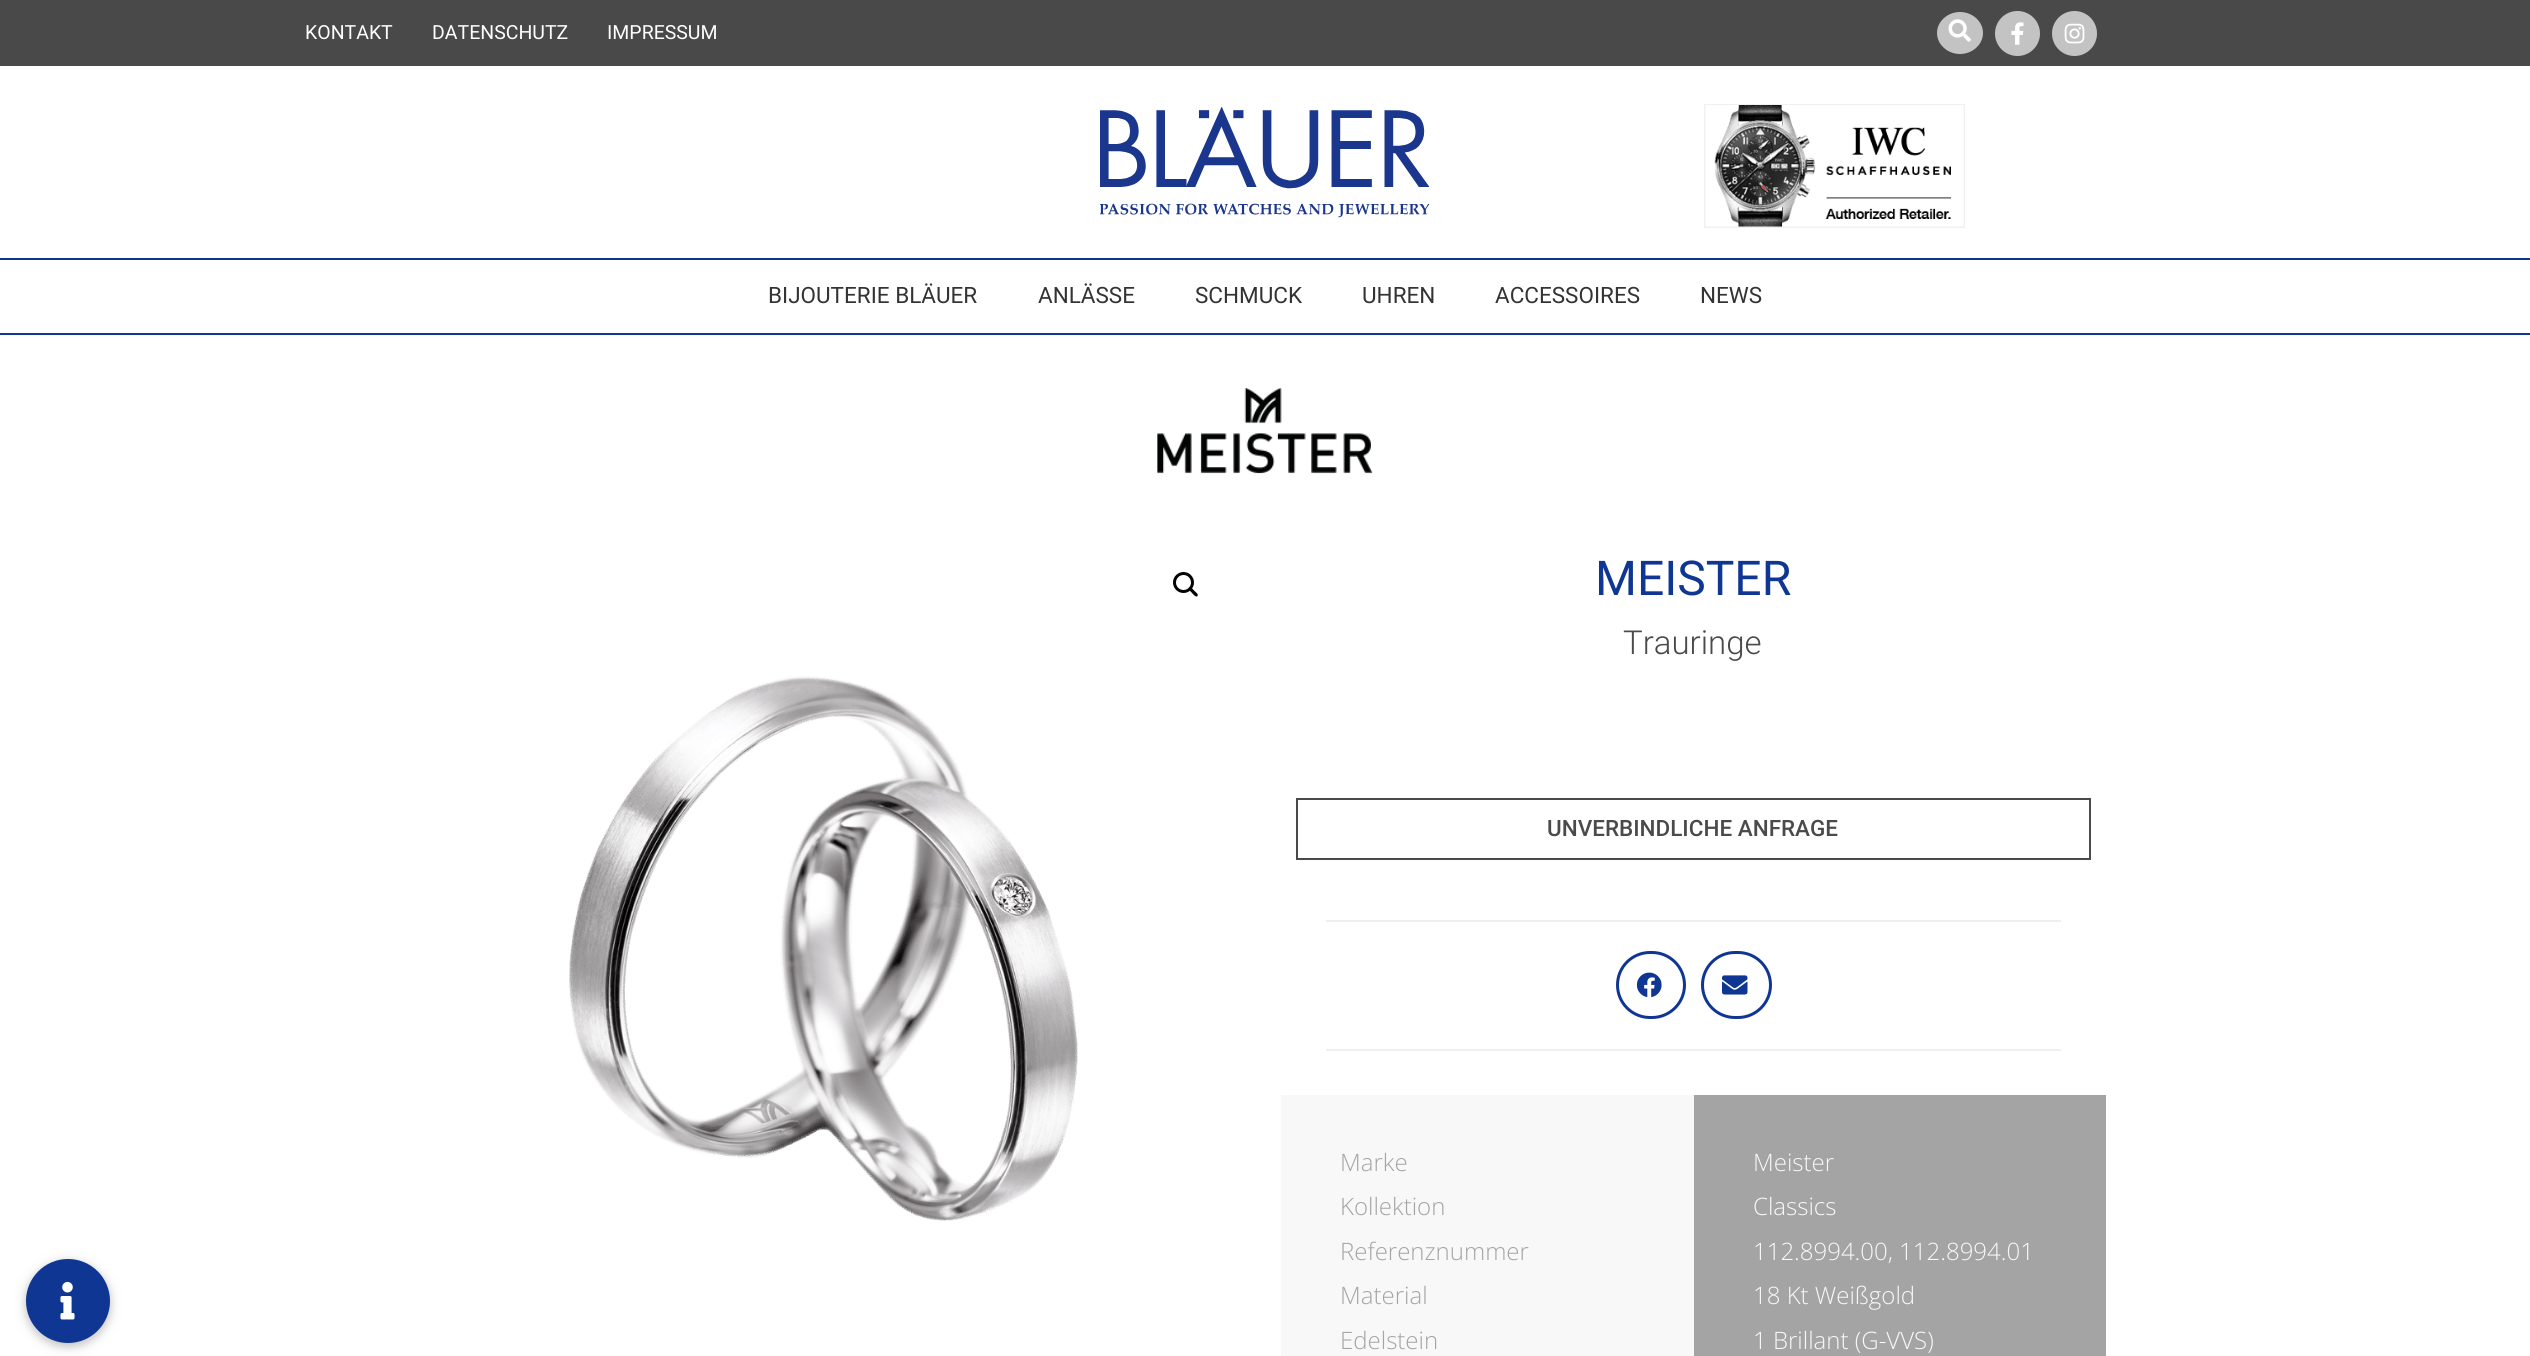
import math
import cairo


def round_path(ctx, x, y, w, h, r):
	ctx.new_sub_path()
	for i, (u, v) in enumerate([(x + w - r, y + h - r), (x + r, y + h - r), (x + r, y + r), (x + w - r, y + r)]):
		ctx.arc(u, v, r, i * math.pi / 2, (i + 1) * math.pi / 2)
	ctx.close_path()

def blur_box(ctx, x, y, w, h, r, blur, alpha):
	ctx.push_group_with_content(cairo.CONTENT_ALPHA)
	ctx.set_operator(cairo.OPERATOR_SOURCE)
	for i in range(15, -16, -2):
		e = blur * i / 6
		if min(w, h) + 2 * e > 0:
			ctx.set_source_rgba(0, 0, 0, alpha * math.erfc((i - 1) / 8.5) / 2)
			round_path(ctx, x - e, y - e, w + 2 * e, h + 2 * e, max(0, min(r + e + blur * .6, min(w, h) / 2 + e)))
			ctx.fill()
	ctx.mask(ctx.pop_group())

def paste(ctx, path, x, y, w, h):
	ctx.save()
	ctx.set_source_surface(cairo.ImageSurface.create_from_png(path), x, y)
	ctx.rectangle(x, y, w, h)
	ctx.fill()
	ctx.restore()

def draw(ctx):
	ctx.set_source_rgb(1, 1, 1)
	ctx.paint()
	ctx.set_source_rgb(0, 0, 0)
	blur_box(ctx, 26, 1262, 84, 84, 42, 7.5, 0.12)
	blur_box(ctx, 26, 1262, 84, 84, 42, 4, 0.16)
	ctx.set_source_rgb(0.055, 0.212, 0.573)
	ctx.arc(68, 1301, 42, 0, 2 * math.pi)
	ctx.fill()
	paste(ctx, 'media/1.png', 60, 1281, 15, 39)
	ctx.set_source_rgb(0.286, 0.286, 0.286)
	ctx.rectangle(0, 0, 2530, 66)
	ctx.fill()
	ctx.select_font_face('Roboto')
	ctx.set_font_size(19.5)
	ctx.set_source_rgb(1, 1, 1)
	for x, y, s in [
		(305, 39, 'KONTAKT'),
		(432, 39, 'DATENSCHUTZ'),
		(607, 39, 'IMPRESSUM'),
	]:
		ctx.move_to(x, y)
		ctx.show_text(s)
	ctx.set_source_rgb(0.765, 0.765, 0.765)
	ctx.new_path()
	ctx.move_to(1960, 12)
	ctx.curve_to(1972.5, 12, 1983, 21.5, 1983, 33)
	ctx.curve_to(1983, 44.5, 1972.5, 54, 1960, 54)
	ctx.curve_to(1947.5, 54, 1937, 44.5, 1937, 33)
	ctx.curve_to(1937, 21.5, 1947.5, 12, 1960, 12)
	ctx.close_path()
	ctx.fill()
	paste(ctx, 'media/2.png', 1948, 19, 23, 23)
	ctx.arc(2017.5, 33.5, 22.5, 0, 2 * math.pi)
	ctx.fill()
	paste(ctx, 'media/3.png', 2011, 22, 13, 23)
	ctx.arc(2074.5, 33.5, 22.5, 0, 2 * math.pi)
	ctx.fill()
	paste(ctx, 'media/4.png', 2064, 23, 21, 21)
	ctx.set_source_rgb(0.055, 0.212, 0.573)
	ctx.rectangle(0, 258, 2530, 2)
	ctx.fill()
	paste(ctx, 'media/5.png', 1100, 107, 330, 111)
	ctx.rectangle(1705, 105, 259, 122)
	ctx.set_source_rgb(0.941, 0.941, 0.941)
	ctx.stroke()
	paste(ctx, 'media/6.png', 1705, 105, 259, 122)
	ctx.set_source_rgb(0.055, 0.212, 0.573)
	ctx.rectangle(0, 333, 2530, 2)
	ctx.fill()
	ctx.set_font_size(22.5)
	ctx.set_source_rgb(0.2, 0.2, 0.2)
	for x, y, s in [
		(768, 303, 'BIJOUTERIE BLÄUER'),
		(1038, 303, 'ANLÄSSE'),
		(1195, 303, 'SCHMUCK'),
		(1362, 303, 'UHREN'),
		(1495, 303, 'ACCESSOIRES'),
		(1700, 303, 'NEWS'),
	]:
		ctx.move_to(x, y)
		ctx.show_text(s)
	paste(ctx, 'media/7.png', 1157, 388, 216, 86)
	ctx.arc(1183.5, 582.5, 9, 0, 2 * math.pi)
	ctx.set_source_rgb(0, 0, 0)
	ctx.set_line_width(3)
	ctx.stroke()
	ctx.new_path()
	ctx.move_to(1189, 587.5)
	ctx.curve_to(1190.5, 586, 1193.5, 590, 1194.5, 591)
	ctx.curve_to(1195, 591.5, 1199, 594.5, 1197.5, 596)
	ctx.curve_to(1196, 598, 1193, 594, 1192, 593)
	ctx.curve_to(1191.5, 592, 1187.5, 589.5, 1189, 587.5)
	ctx.close_path()
	ctx.fill()
	paste(ctx, 'media/8.png', 569, 676, 509, 545)
	ctx.set_font_size(48)
	ctx.set_source_rgb(0.055, 0.212, 0.573)
	ctx.move_to(1595, 595)
	ctx.show_text('MEISTER')
	ctx.select_font_face('Roboto Light')
	ctx.set_font_size(33)
	ctx.set_source_rgb(0.29, 0.29, 0.29)
	ctx.move_to(1623, 654)
	ctx.show_text('Trauringe')
	ctx.rectangle(1297, 799, 793, 60)
	ctx.set_source_rgb(0.286, 0.286, 0.286)
	ctx.set_line_width(2)
	ctx.stroke()
	ctx.select_font_face('Roboto Medium')
	ctx.set_font_size(22.5)
	ctx.set_source_rgb(0.29, 0.29, 0.29)
	ctx.move_to(1547, 836)
	ctx.show_text('UNVERBINDLICHE ANFRAGE')
	ctx.set_source_rgb(0.937, 0.937, 0.937)
	ctx.rectangle(1326, 920, 735, 2)
	ctx.fill()
	ctx.rectangle(1326, 1049, 735, 2)
	ctx.fill()
	round_path(ctx, 1617.5, 952.5, 67, 65, 32.5)
	ctx.set_source_rgb(0.055, 0.212, 0.573)
	ctx.set_line_width(3)
	ctx.stroke()
	paste(ctx, 'media/9.png', 1636, 972, 26, 26)
	round_path(ctx, 1702.5, 952.5, 68, 65, 32.5)
	ctx.stroke()
	paste(ctx, 'media/10.png', 1722, 975, 26, 20)
	ctx.set_source_rgb(0.969, 0.969, 0.969)
	ctx.rectangle(1281, 1095, 413, 261)
	ctx.fill()
	ctx.select_font_face('Open Sans Light')
	ctx.set_font_size(24)
	ctx.set_source_rgb(0.643, 0.643, 0.643)
	ctx.move_to(1340, 1171)
	ctx.show_text('Marke')
	ctx.rectangle(1694, 1095, 412, 261)
	ctx.fill()
	ctx.set_source_rgb(0.969, 0.969, 0.969)
	ctx.move_to(1753, 1171)
	ctx.show_text('Meister')
	ctx.set_source_rgb(0.643, 0.643, 0.643)
	ctx.move_to(1340, 1215)
	ctx.show_text('Kollektion')
	ctx.set_source_rgb(0.969, 0.969, 0.969)
	ctx.move_to(1753, 1215)
	ctx.show_text('Classics')
	ctx.set_source_rgb(0.643, 0.643, 0.643)
	ctx.move_to(1340, 1260)
	ctx.show_text('Referenznummer')
	ctx.set_source_rgb(0.969, 0.969, 0.969)
	ctx.move_to(1753, 1260)
	ctx.show_text('112.8994.00, 112.8994.01')
	ctx.set_source_rgb(0.643, 0.643, 0.643)
	ctx.move_to(1340, 1304)
	ctx.show_text('Material')
	ctx.set_source_rgb(0.969, 0.969, 0.969)
	ctx.move_to(1753, 1304)
	ctx.show_text('18 Kt Weißgold')
	ctx.set_source_rgb(0.643, 0.643, 0.643)
	ctx.move_to(1340, 1349)
	ctx.show_text('Edelstein')
	ctx.set_source_rgb(0.969, 0.969, 0.969)
	ctx.move_to(1753, 1349)
	ctx.show_text('1 Brillant (G-VVS)')


surface = cairo.ImageSurface(cairo.FORMAT_RGB24, 2530, 1356)
ctx = cairo.Context(surface)
options = cairo.FontOptions()
options.set_hint_metrics(cairo.HINT_METRICS_OFF)
options.set_hint_style(cairo.HINT_STYLE_NONE)
ctx.set_font_options(options)
ctx.set_miter_limit(4)
draw(ctx)
surface.write_to_png('image.png')
